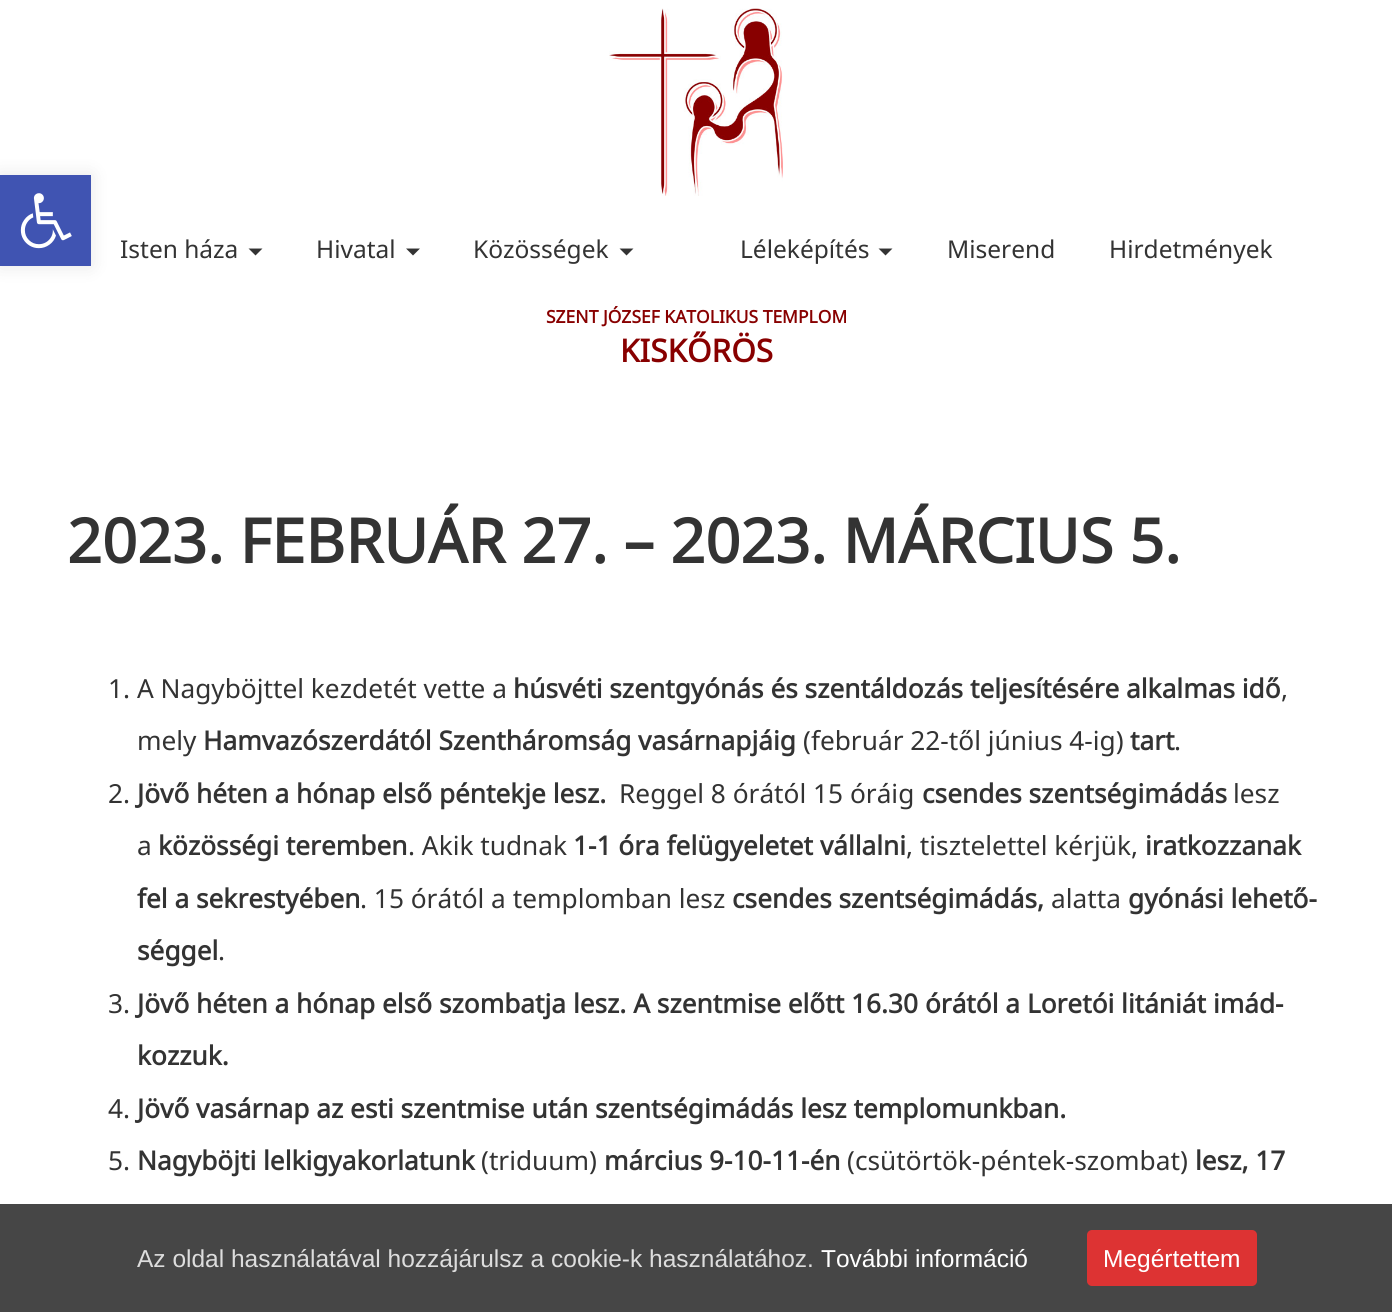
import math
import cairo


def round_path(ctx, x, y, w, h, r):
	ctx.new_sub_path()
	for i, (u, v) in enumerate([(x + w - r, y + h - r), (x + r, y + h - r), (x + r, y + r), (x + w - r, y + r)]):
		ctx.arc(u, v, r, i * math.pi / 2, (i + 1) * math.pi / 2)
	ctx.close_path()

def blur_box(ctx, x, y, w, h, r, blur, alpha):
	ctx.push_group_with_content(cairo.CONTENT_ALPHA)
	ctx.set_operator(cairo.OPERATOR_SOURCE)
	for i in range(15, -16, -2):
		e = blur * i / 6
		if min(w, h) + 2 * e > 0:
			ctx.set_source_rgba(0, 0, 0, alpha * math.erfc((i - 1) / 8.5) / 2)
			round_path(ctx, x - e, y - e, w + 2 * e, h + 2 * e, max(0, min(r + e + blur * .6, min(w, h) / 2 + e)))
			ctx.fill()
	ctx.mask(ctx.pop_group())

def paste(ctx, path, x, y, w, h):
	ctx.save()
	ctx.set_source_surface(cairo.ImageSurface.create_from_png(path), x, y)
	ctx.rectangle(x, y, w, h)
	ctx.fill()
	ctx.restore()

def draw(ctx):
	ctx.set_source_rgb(1, 1, 1)
	ctx.paint()
	ctx.set_source_rgb(0, 0, 0)
	blur_box(ctx, 0, 175, 91, 91, 0, 9, 0.1)
	ctx.set_source_rgb(0.251, 0.329, 0.698)
	ctx.rectangle(0, 175, 91, 91)
	ctx.fill()
	paste(ctx, 'media/1.png', 20, 193, 52, 56)
	paste(ctx, 'media/2.png', 609, 8, 174, 188)
	ctx.select_font_face('Noto Sans')
	ctx.set_font_size(24.5)
	ctx.set_source_rgb(0.2, 0.2, 0.2)
	ctx.move_to(120, 258)
	ctx.show_text('Isten háza')
	ctx.new_path()
	ctx.move_to(248.5, 248.5)
	ctx.line_to(262.5, 248.5)
	ctx.line_to(255.5, 255.5)
	ctx.close_path()
	ctx.fill()
	ctx.move_to(316, 258)
	ctx.show_text('Hivatal')
	ctx.new_path()
	ctx.move_to(406, 248.5)
	ctx.line_to(420, 248.5)
	ctx.line_to(413, 255.5)
	ctx.close_path()
	ctx.fill()
	ctx.move_to(473, 258)
	ctx.show_text('Közösségek')
	ctx.new_path()
	ctx.move_to(619.5, 248.5)
	ctx.line_to(633.5, 248.5)
	ctx.line_to(626.5, 255.5)
	ctx.close_path()
	ctx.fill()
	ctx.move_to(740, 258)
	ctx.show_text('Léleképítés')
	ctx.new_path()
	ctx.move_to(878.5, 248.5)
	ctx.line_to(892.5, 248.5)
	ctx.line_to(885.5, 255.5)
	ctx.close_path()
	ctx.fill()
	ctx.move_to(947, 258)
	ctx.show_text('Miserend')
	ctx.move_to(1109, 258)
	ctx.show_text('Hirdetmények')
	ctx.select_font_face('Noto Sans', cairo.FONT_SLANT_NORMAL, cairo.FONT_WEIGHT_BOLD)
	ctx.set_font_size(17.5)
	ctx.set_source_rgb(0.533, 0, 0)
	ctx.move_to(546, 323)
	ctx.show_text('SZENT JÓZSEF KATOLIKUS TEMPLOM')
	ctx.set_font_size(31.5)
	ctx.move_to(620, 362)
	ctx.show_text('KISKŐRÖS')
	ctx.set_font_size(61.25)
	ctx.set_source_rgb(0.2, 0.2, 0.2)
	ctx.move_to(67, 563)
	ctx.show_text('2023. FEBRUÁR 27. – 2023. MÁRCIUS 5.')
	ctx.select_font_face('Noto Sans')
	ctx.set_font_size(26.25)
	ctx.move_to(108, 698)
	ctx.show_text('1. A Nagyböjttel kezdetét vette a')
	ctx.select_font_face('Noto Sans', cairo.FONT_SLANT_NORMAL, cairo.FONT_WEIGHT_BOLD)
	ctx.move_to(513, 698)
	ctx.show_text('húsvéti szentgyónás és szentáldozás teljesítésére alkalmas idő')
	ctx.select_font_face('Noto Sans')
	ctx.move_to(1281, 698)
	ctx.show_text(',')
	ctx.move_to(137, 750)
	ctx.show_text('mely')
	ctx.select_font_face('Noto Sans', cairo.FONT_SLANT_NORMAL, cairo.FONT_WEIGHT_BOLD)
	ctx.move_to(203, 750)
	ctx.show_text('Hamvazószerdától Szentháromság vasárnapjáig')
	ctx.select_font_face('Noto Sans')
	ctx.move_to(803, 750)
	ctx.show_text('(február 22-től június 4-ig)')
	ctx.select_font_face('Noto Sans', cairo.FONT_SLANT_NORMAL, cairo.FONT_WEIGHT_BOLD)
	ctx.move_to(1130, 750)
	ctx.show_text('tart')
	ctx.select_font_face('Noto Sans')
	ctx.move_to(1174, 750)
	ctx.show_text('.')
	ctx.move_to(108, 803)
	ctx.show_text('2.')
	ctx.select_font_face('Noto Sans', cairo.FONT_SLANT_NORMAL, cairo.FONT_WEIGHT_BOLD)
	ctx.move_to(137, 803)
	ctx.show_text('Jövő héten a hónap első péntekje lesz.')
	ctx.select_font_face('Noto Sans')
	ctx.move_to(619, 803)
	ctx.show_text('Reggel 8 órától 15 óráig')
	ctx.select_font_face('Noto Sans', cairo.FONT_SLANT_NORMAL, cairo.FONT_WEIGHT_BOLD)
	ctx.move_to(922, 803)
	ctx.show_text('csendes szentségimádás')
	ctx.select_font_face('Noto Sans')
	ctx.move_to(1233, 803)
	ctx.show_text('lesz')
	ctx.move_to(137, 855)
	ctx.show_text('a')
	ctx.select_font_face('Noto Sans', cairo.FONT_SLANT_NORMAL, cairo.FONT_WEIGHT_BOLD)
	ctx.move_to(158, 855)
	ctx.show_text('közösségi teremben')
	ctx.select_font_face('Noto Sans')
	ctx.move_to(408, 855)
	ctx.show_text('. Akik tudnak')
	ctx.select_font_face('Noto Sans', cairo.FONT_SLANT_NORMAL, cairo.FONT_WEIGHT_BOLD)
	ctx.move_to(573, 855)
	ctx.show_text('1-1 óra felügyeletet vállalni')
	ctx.select_font_face('Noto Sans')
	ctx.move_to(906, 855)
	ctx.show_text(', tisztelettel kérjük,')
	ctx.select_font_face('Noto Sans', cairo.FONT_SLANT_NORMAL, cairo.FONT_WEIGHT_BOLD)
	ctx.move_to(1145, 855)
	ctx.show_text('iratkozzanak')
	ctx.move_to(137, 908)
	ctx.show_text('fel a sekrestyében')
	ctx.select_font_face('Noto Sans')
	ctx.move_to(360, 908)
	ctx.show_text('. 15 órától a templomban lesz')
	ctx.select_font_face('Noto Sans', cairo.FONT_SLANT_NORMAL, cairo.FONT_WEIGHT_BOLD)
	ctx.move_to(732, 908)
	ctx.show_text('csendes szentségimádás,')
	ctx.select_font_face('Noto Sans')
	ctx.move_to(1051, 908)
	ctx.show_text('alatta')
	ctx.select_font_face('Noto Sans', cairo.FONT_SLANT_NORMAL, cairo.FONT_WEIGHT_BOLD)
	ctx.move_to(1128, 908)
	ctx.show_text('gyónási lehető-')
	ctx.move_to(137, 960)
	ctx.show_text('séggel')
	ctx.select_font_face('Noto Sans')
	ctx.move_to(218, 960)
	ctx.show_text('.')
	ctx.move_to(108, 1013)
	ctx.show_text('3.')
	ctx.select_font_face('Noto Sans', cairo.FONT_SLANT_NORMAL, cairo.FONT_WEIGHT_BOLD)
	ctx.move_to(137, 1013)
	ctx.show_text('Jövő héten a hónap első szombatja lesz. A szentmise előtt 16.30 órától a Loretói litániát imád-')
	ctx.move_to(137, 1065)
	ctx.show_text('kozzuk.')
	ctx.select_font_face('Noto Sans')
	ctx.move_to(108, 1118)
	ctx.show_text('4.')
	ctx.select_font_face('Noto Sans', cairo.FONT_SLANT_NORMAL, cairo.FONT_WEIGHT_BOLD)
	ctx.move_to(137, 1118)
	ctx.show_text('Jövő vasárnap az esti szentmise után szentségimádás lesz templomunkban.')
	ctx.select_font_face('Noto Sans')
	ctx.move_to(108, 1170)
	ctx.show_text('5.')
	ctx.select_font_face('Noto Sans', cairo.FONT_SLANT_NORMAL, cairo.FONT_WEIGHT_BOLD)
	ctx.move_to(137, 1170)
	ctx.show_text('Nagyböjti lelkigyakorlatunk')
	ctx.select_font_face('Noto Sans')
	ctx.move_to(481, 1170)
	ctx.show_text('(triduum)')
	ctx.select_font_face('Noto Sans', cairo.FONT_SLANT_NORMAL, cairo.FONT_WEIGHT_BOLD)
	ctx.move_to(604, 1170)
	ctx.show_text('március 9-10-11-én')
	ctx.select_font_face('Noto Sans')
	ctx.move_to(847, 1170)
	ctx.show_text('(csütörtök-péntek-szombat)')
	ctx.select_font_face('Noto Sans', cairo.FONT_SLANT_NORMAL, cairo.FONT_WEIGHT_BOLD)
	ctx.move_to(1195, 1170)
	ctx.show_text('lesz, 17')
	ctx.set_source_rgb(0.275, 0.275, 0.275)
	ctx.rectangle(0, 1204, 1392, 108)
	ctx.fill()
	ctx.select_font_face('Liberation Sans')
	ctx.set_font_size(24.5)
	ctx.set_source_rgb(0.867, 0.867, 0.867)
	ctx.move_to(137, 1267)
	ctx.show_text('Az oldal használatával hozzájárulsz a cookie-k használatához.')
	ctx.set_source_rgb(1, 1, 1)
	ctx.move_to(821, 1267)
	ctx.show_text('További információ')
	ctx.set_source_rgb(0.867, 0.2, 0.2)
	round_path(ctx, 1087, 1230, 170, 56, 5)
	ctx.fill()
	ctx.set_source_rgb(1, 1, 1)
	ctx.move_to(1103, 1267)
	ctx.show_text('Megértettem')


surface = cairo.ImageSurface(cairo.FORMAT_RGB24, 1392, 1312)
ctx = cairo.Context(surface)
options = cairo.FontOptions()
options.set_hint_metrics(cairo.HINT_METRICS_OFF)
options.set_hint_style(cairo.HINT_STYLE_NONE)
ctx.set_font_options(options)
ctx.set_miter_limit(4)
draw(ctx)
surface.write_to_png('image.png')
